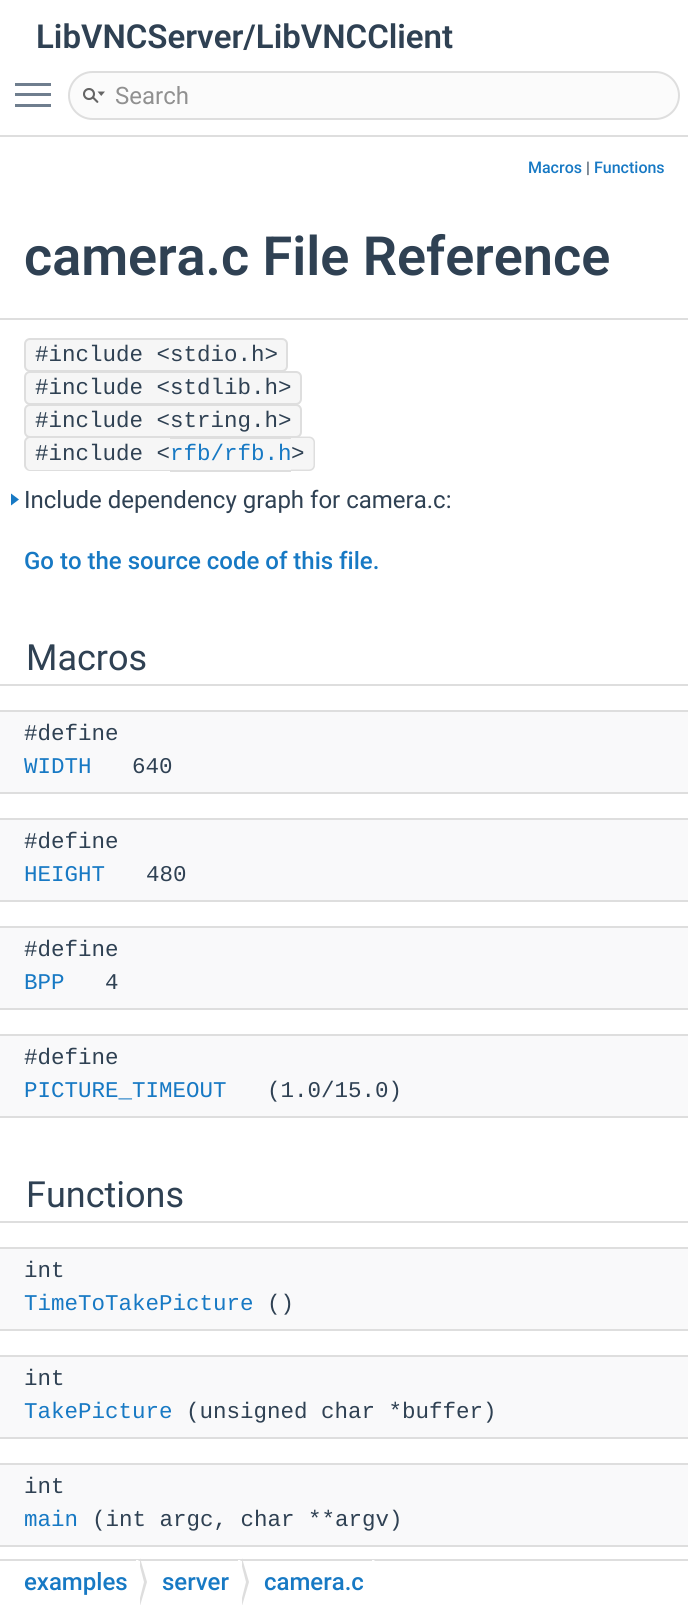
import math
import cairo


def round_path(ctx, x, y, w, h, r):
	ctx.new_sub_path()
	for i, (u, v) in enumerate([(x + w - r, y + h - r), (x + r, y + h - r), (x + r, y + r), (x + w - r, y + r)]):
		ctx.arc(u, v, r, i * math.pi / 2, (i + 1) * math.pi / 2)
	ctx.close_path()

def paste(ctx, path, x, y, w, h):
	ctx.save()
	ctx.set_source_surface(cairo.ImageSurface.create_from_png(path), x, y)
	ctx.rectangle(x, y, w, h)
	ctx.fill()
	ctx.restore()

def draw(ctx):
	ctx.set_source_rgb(1, 1, 1)
	ctx.paint()
	ctx.set_source_rgb(0.871, 0.871, 0.871)
	ctx.rectangle(0, 135, 688, 2)
	ctx.fill()
	ctx.select_font_face('Roboto SemiBold')
	ctx.set_font_size(33)
	ctx.set_source_rgb(0.184, 0.255, 0.325)
	ctx.move_to(36, 48)
	ctx.show_text('LibVNCServer/LibVNCClient')
	ctx.set_source_rgb(0.435, 0.494, 0.557)
	ctx.rectangle(15, 93, 36, 3)
	ctx.rectangle(15, 83, 36, 3)
	ctx.rectangle(15, 104, 36, 3)
	ctx.fill()
	ctx.set_source_rgb(0.984, 0.984, 0.984)
	round_path(ctx, 69, 72, 610, 47, 23.5)
	ctx.fill_preserve()
	ctx.set_source_rgb(0.871, 0.871, 0.871)
	ctx.stroke()
	paste(ctx, 'media/1.png', 83, 88, 22, 15)
	ctx.select_font_face('Roboto')
	ctx.set_font_size(24)
	ctx.set_source_rgb(0.565, 0.565, 0.565)
	ctx.move_to(115, 104)
	ctx.show_text('Search')
	ctx.set_source_rgb(0.871, 0.871, 0.871)
	ctx.rectangle(0, 318, 688, 2)
	ctx.fill()
	ctx.select_font_face('Roboto Medium')
	ctx.set_font_size(16)
	ctx.set_source_rgb(0.09, 0.475, 0.769)
	ctx.move_to(528, 173)
	ctx.show_text('Macros')
	ctx.select_font_face('Roboto')
	ctx.set_source_rgb(0.184, 0.255, 0.325)
	ctx.move_to(586, 173)
	ctx.show_text('|')
	ctx.select_font_face('Roboto Medium')
	ctx.set_source_rgb(0.09, 0.475, 0.769)
	ctx.move_to(594, 173)
	ctx.show_text('Functions')
	ctx.select_font_face('Roboto SemiBold')
	ctx.set_font_size(54)
	ctx.set_source_rgb(0.184, 0.255, 0.325)
	ctx.move_to(24, 275)
	ctx.show_text('camera.c File Reference')
	ctx.set_source_rgb(0.961, 0.961, 0.961)
	round_path(ctx, 25, 339, 262, 32, 5)
	ctx.fill_preserve()
	ctx.set_source_rgb(0.871, 0.871, 0.871)
	ctx.stroke()
	ctx.select_font_face('Liberation Mono')
	ctx.set_font_size(22.5)
	ctx.set_source_rgb(0.184, 0.255, 0.325)
	ctx.move_to(35, 361)
	ctx.show_text('#include <stdio.h>')
	ctx.set_source_rgb(0.961, 0.961, 0.961)
	round_path(ctx, 25, 372, 276, 32, 5)
	ctx.fill_preserve()
	ctx.set_source_rgb(0.871, 0.871, 0.871)
	ctx.stroke()
	ctx.set_source_rgb(0.184, 0.255, 0.325)
	ctx.move_to(35, 394)
	ctx.show_text('#include <stdlib.h>')
	ctx.set_source_rgb(0.961, 0.961, 0.961)
	round_path(ctx, 25, 405, 276, 32, 5)
	ctx.fill_preserve()
	ctx.set_source_rgb(0.871, 0.871, 0.871)
	ctx.stroke()
	ctx.set_source_rgb(0.184, 0.255, 0.325)
	ctx.move_to(35, 427)
	ctx.show_text('#include <string.h>')
	ctx.set_source_rgb(0.961, 0.961, 0.961)
	ctx.new_path()
	ctx.move_to(30, 437)
	ctx.line_to(170, 437)
	ctx.line_to(170, 471)
	ctx.line_to(30, 471)
	ctx.curve_to(26.5, 471, 24, 468.5, 24, 465)
	ctx.line_to(24, 443)
	ctx.curve_to(24, 439.5, 26.5, 437, 30, 437)
	ctx.close_path()
	ctx.fill()
	ctx.set_source_rgb(0.871, 0.871, 0.871)
	ctx.set_fill_rule(cairo.FILL_RULE_EVEN_ODD)
	ctx.new_path()
	ctx.move_to(30, 436)
	ctx.line_to(170, 436)
	ctx.line_to(170, 471)
	ctx.line_to(30, 471)
	ctx.curve_to(27, 471, 24, 468, 24, 465)
	ctx.line_to(24, 442)
	ctx.curve_to(24, 439, 27, 436, 30, 436)
	ctx.close_path()
	ctx.move_to(30, 438)
	ctx.line_to(170, 438)
	ctx.line_to(170, 470)
	ctx.line_to(30, 470)
	ctx.curve_to(28, 470, 26, 467, 26, 465)
	ctx.line_to(26, 442)
	ctx.curve_to(26, 440, 28, 438, 30, 438)
	ctx.close_path()
	ctx.fill()
	ctx.set_source_rgb(0.184, 0.255, 0.325)
	ctx.move_to(35, 460)
	ctx.show_text('#include <')
	ctx.set_source_rgb(0.961, 0.961, 0.961)
	ctx.rectangle(170, 439, 121, 31)
	ctx.fill()
	ctx.set_source_rgb(0.09, 0.475, 0.769)
	ctx.move_to(170, 460)
	ctx.show_text('rfb/rfb.h')
	ctx.set_source_rgb(0.871, 0.871, 0.871)
	ctx.rectangle(170, 438, 121, 1)
	ctx.fill()
	ctx.rectangle(170, 470, 121, 2)
	ctx.fill()
	ctx.set_source_rgb(0.961, 0.961, 0.961)
	ctx.new_path()
	ctx.move_to(291, 437)
	ctx.line_to(309, 437)
	ctx.curve_to(312.5, 437, 315, 439.5, 315, 443)
	ctx.line_to(315, 465)
	ctx.curve_to(315, 468.5, 312.5, 471, 309, 471)
	ctx.line_to(291, 471)
	ctx.close_path()
	ctx.fill()
	ctx.set_source_rgb(0.871, 0.871, 0.871)
	ctx.new_path()
	ctx.move_to(291, 436.5)
	ctx.line_to(309, 436.5)
	ctx.curve_to(312.5, 436.5, 315, 439, 315, 442.5)
	ctx.line_to(315, 465)
	ctx.curve_to(315, 468.5, 312.5, 471, 309, 471)
	ctx.line_to(291, 471)
	ctx.close_path()
	ctx.move_to(291, 438)
	ctx.line_to(309, 438)
	ctx.curve_to(311.5, 438, 313.5, 440, 313.5, 442.5)
	ctx.line_to(313.5, 465)
	ctx.curve_to(313.5, 467.5, 311.5, 469.5, 309, 469.5)
	ctx.line_to(291, 469.5)
	ctx.close_path()
	ctx.fill()
	ctx.set_source_rgb(0.184, 0.255, 0.325)
	ctx.move_to(291, 460)
	ctx.show_text('>')
	ctx.set_source_rgb(0.09, 0.475, 0.769)
	ctx.set_fill_rule(cairo.FILL_RULE_WINDING)
	ctx.new_path()
	ctx.move_to(11, 505.5)
	ctx.line_to(11, 493.5)
	ctx.line_to(19, 499.5)
	ctx.close_path()
	ctx.fill()
	ctx.select_font_face('Roboto')
	ctx.set_font_size(24)
	ctx.set_source_rgb(0.184, 0.255, 0.325)
	ctx.move_to(24, 508)
	ctx.show_text('Include dependency graph for camera.c:')
	ctx.select_font_face('Roboto Medium')
	ctx.set_source_rgb(0.09, 0.475, 0.769)
	ctx.move_to(24, 569)
	ctx.show_text('Go to the source code of this file.')
	ctx.set_source_rgb(0.871, 0.871, 0.871)
	ctx.new_path()
	ctx.move_to(-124, 626)
	ctx.line_to(-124, 686)
	ctx.line_to(513, 686)
	ctx.line_to(513, 684)
	ctx.line_to(26, 684)
	ctx.line_to(26, 626)
	ctx.close_path()
	ctx.fill()
	ctx.new_path()
	ctx.move_to(176, 684)
	ctx.line_to(176, 686)
	ctx.line_to(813, 686)
	ctx.line_to(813, 626)
	ctx.line_to(663, 626)
	ctx.line_to(663, 684)
	ctx.close_path()
	ctx.fill()
	ctx.set_source_rgb(1, 1, 1)
	ctx.rectangle(0, 626, 26, 58)
	ctx.fill()
	ctx.rectangle(663, 626, 25, 58)
	ctx.fill()
	ctx.select_font_face('Roboto')
	ctx.set_font_size(36)
	ctx.set_source_rgb(0.184, 0.255, 0.325)
	ctx.move_to(26, 670)
	ctx.show_text('Macros')
	ctx.set_source_rgb(0.973, 0.976, 0.98)
	ctx.rectangle(0, 712, 688, 80)
	ctx.fill()
	ctx.set_source_rgb(0.871, 0.871, 0.871)
	ctx.rectangle(0, 710, 688, 2)
	ctx.fill()
	ctx.select_font_face('Liberation Mono')
	ctx.set_font_size(22.5)
	ctx.set_source_rgb(0.184, 0.255, 0.325)
	ctx.move_to(24, 740)
	ctx.show_text('#define')
	ctx.set_source_rgb(0.871, 0.871, 0.871)
	ctx.rectangle(0, 792, 688, 2)
	ctx.fill()
	ctx.set_source_rgb(0.09, 0.475, 0.769)
	ctx.move_to(24, 773)
	ctx.show_text('WIDTH')
	ctx.set_source_rgb(0.184, 0.255, 0.325)
	ctx.move_to(132, 773)
	ctx.show_text('640')
	ctx.set_source_rgb(0.973, 0.976, 0.98)
	ctx.rectangle(0, 820, 688, 80)
	ctx.fill()
	ctx.set_source_rgb(0.871, 0.871, 0.871)
	ctx.rectangle(0, 818, 688, 2)
	ctx.fill()
	ctx.set_source_rgb(0.184, 0.255, 0.325)
	ctx.move_to(24, 848)
	ctx.show_text('#define')
	ctx.set_source_rgb(0.871, 0.871, 0.871)
	ctx.rectangle(0, 900, 688, 2)
	ctx.fill()
	ctx.set_source_rgb(0.09, 0.475, 0.769)
	ctx.move_to(24, 881)
	ctx.show_text('HEIGHT')
	ctx.set_source_rgb(0.184, 0.255, 0.325)
	ctx.move_to(146, 881)
	ctx.show_text('480')
	ctx.set_source_rgb(0.973, 0.976, 0.98)
	ctx.rectangle(0, 928, 688, 80)
	ctx.fill()
	ctx.set_source_rgb(0.871, 0.871, 0.871)
	ctx.rectangle(0, 926, 688, 2)
	ctx.fill()
	ctx.set_source_rgb(0.184, 0.255, 0.325)
	ctx.move_to(24, 956)
	ctx.show_text('#define')
	ctx.set_source_rgb(0.871, 0.871, 0.871)
	ctx.rectangle(0, 1008, 688, 2)
	ctx.fill()
	ctx.set_source_rgb(0.09, 0.475, 0.769)
	ctx.move_to(24, 989)
	ctx.show_text('BPP')
	ctx.set_source_rgb(0.184, 0.255, 0.325)
	ctx.move_to(105, 989)
	ctx.show_text('4')
	ctx.set_source_rgb(0.973, 0.976, 0.98)
	ctx.rectangle(0, 1036, 688, 80)
	ctx.fill()
	ctx.set_source_rgb(0.871, 0.871, 0.871)
	ctx.rectangle(0, 1034, 688, 2)
	ctx.fill()
	ctx.set_source_rgb(0.184, 0.255, 0.325)
	ctx.move_to(24, 1064)
	ctx.show_text('#define')
	ctx.set_source_rgb(0.871, 0.871, 0.871)
	ctx.rectangle(0, 1116, 688, 2)
	ctx.fill()
	ctx.set_source_rgb(0.09, 0.475, 0.769)
	ctx.move_to(24, 1097)
	ctx.show_text('PICTURE_TIMEOUT')
	ctx.set_source_rgb(0.184, 0.255, 0.325)
	ctx.move_to(267, 1097)
	ctx.show_text('(1.0/15.0)')
	ctx.set_source_rgb(0.871, 0.871, 0.871)
	ctx.new_path()
	ctx.move_to(-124, 1163)
	ctx.line_to(-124, 1223)
	ctx.line_to(513, 1223)
	ctx.line_to(513, 1221)
	ctx.line_to(26, 1221)
	ctx.line_to(26, 1163)
	ctx.close_path()
	ctx.fill()
	ctx.new_path()
	ctx.move_to(176, 1221)
	ctx.line_to(176, 1223)
	ctx.line_to(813, 1223)
	ctx.line_to(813, 1163)
	ctx.line_to(663, 1163)
	ctx.line_to(663, 1221)
	ctx.close_path()
	ctx.fill()
	ctx.set_source_rgb(1, 1, 1)
	ctx.rectangle(0, 1163, 26, 58)
	ctx.fill()
	ctx.rectangle(663, 1163, 25, 58)
	ctx.fill()
	ctx.select_font_face('Roboto')
	ctx.set_font_size(36)
	ctx.set_source_rgb(0.184, 0.255, 0.325)
	ctx.move_to(26, 1207)
	ctx.show_text('Functions')
	ctx.set_source_rgb(0.973, 0.976, 0.98)
	ctx.rectangle(0, 1249, 688, 80)
	ctx.fill()
	ctx.set_source_rgb(0.871, 0.871, 0.871)
	ctx.rectangle(0, 1247, 688, 2)
	ctx.fill()
	ctx.select_font_face('Liberation Mono')
	ctx.set_font_size(22.5)
	ctx.set_source_rgb(0.184, 0.255, 0.325)
	ctx.move_to(24, 1277)
	ctx.show_text('int')
	ctx.set_source_rgb(0.871, 0.871, 0.871)
	ctx.rectangle(0, 1329, 688, 2)
	ctx.fill()
	ctx.set_source_rgb(0.09, 0.475, 0.769)
	ctx.move_to(24, 1310)
	ctx.show_text('TimeToTakePicture')
	ctx.set_source_rgb(0.184, 0.255, 0.325)
	ctx.move_to(267, 1310)
	ctx.show_text('()')
	ctx.set_source_rgb(0.973, 0.976, 0.98)
	ctx.rectangle(0, 1357, 688, 80)
	ctx.fill()
	ctx.set_source_rgb(0.871, 0.871, 0.871)
	ctx.rectangle(0, 1355, 688, 2)
	ctx.fill()
	ctx.set_source_rgb(0.184, 0.255, 0.325)
	ctx.move_to(24, 1385)
	ctx.show_text('int')
	ctx.set_source_rgb(0.871, 0.871, 0.871)
	ctx.rectangle(0, 1437, 688, 2)
	ctx.fill()
	ctx.set_source_rgb(0.09, 0.475, 0.769)
	ctx.move_to(24, 1418)
	ctx.show_text('TakePicture')
	ctx.set_source_rgb(0.184, 0.255, 0.325)
	ctx.move_to(186, 1418)
	ctx.show_text('(unsigned char *buffer)')
	ctx.set_source_rgb(0.973, 0.976, 0.98)
	ctx.rectangle(0, 1465, 688, 80)
	ctx.fill()
	ctx.set_source_rgb(0.871, 0.871, 0.871)
	ctx.rectangle(0, 1463, 688, 2)
	ctx.fill()
	ctx.set_source_rgb(0.184, 0.255, 0.325)
	ctx.move_to(24, 1493)
	ctx.show_text('int')
	ctx.set_source_rgb(0.871, 0.871, 0.871)
	ctx.rectangle(0, 1545, 688, 2)
	ctx.fill()
	ctx.set_source_rgb(0.09, 0.475, 0.769)
	ctx.move_to(24, 1526)
	ctx.show_text('main')
	ctx.set_source_rgb(0.184, 0.255, 0.325)
	ctx.move_to(92, 1526)
	ctx.show_text('(int argc, char **argv)')
	ctx.set_source_rgb(0.871, 0.871, 0.871)
	ctx.rectangle(0, 1559, 688, 2)
	ctx.fill()
	ctx.select_font_face('Roboto Medium')
	ctx.set_font_size(24)
	ctx.set_source_rgb(0.09, 0.475, 0.769)
	ctx.move_to(24, 1590)
	ctx.show_text('examples')
	ctx.set_source_rgb(0.871, 0.871, 0.871)
	ctx.new_path()
	ctx.move_to(140, 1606)
	ctx.line_to(140, 1558)
	ctx.line_to(147, 1582)
	ctx.close_path()
	ctx.fill()
	ctx.save()
	ctx.rectangle(0, 1560, 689, 45)
	ctx.clip()
	ctx.set_source_rgb(1, 1, 1)
	ctx.new_path()
	ctx.move_to(136, 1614)
	ctx.line_to(136, 1551)
	ctx.line_to(144, 1582)
	ctx.close_path()
	ctx.fill()
	ctx.restore()
	ctx.set_source_rgb(0.09, 0.475, 0.769)
	ctx.move_to(162, 1590)
	ctx.show_text('server')
	ctx.set_source_rgb(0.871, 0.871, 0.871)
	ctx.new_path()
	ctx.move_to(242, 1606)
	ctx.line_to(242, 1558)
	ctx.line_to(249, 1582)
	ctx.close_path()
	ctx.fill()
	ctx.save()
	ctx.rectangle(0, 1560, 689, 45)
	ctx.clip()
	ctx.set_source_rgb(1, 1, 1)
	ctx.new_path()
	ctx.move_to(238, 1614)
	ctx.line_to(238, 1551)
	ctx.line_to(246, 1582)
	ctx.close_path()
	ctx.fill()
	ctx.restore()
	ctx.set_source_rgb(0.09, 0.475, 0.769)
	ctx.move_to(264, 1590)
	ctx.show_text('camera.c')
	ctx.save()
	ctx.rectangle(0, 1560, 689, 45)
	ctx.clip()
	ctx.set_source_rgb(1, 1, 1)
	ctx.new_path()
	ctx.move_to(372, 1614)
	ctx.line_to(372, 1551)
	ctx.line_to(380, 1582)
	ctx.close_path()
	ctx.fill()
	ctx.restore()


surface = cairo.ImageSurface(cairo.FORMAT_RGB24, 688, 1605)
ctx = cairo.Context(surface)
options = cairo.FontOptions()
options.set_hint_metrics(cairo.HINT_METRICS_OFF)
options.set_hint_style(cairo.HINT_STYLE_NONE)
ctx.set_font_options(options)
ctx.set_miter_limit(4)
draw(ctx)
surface.write_to_png('image.png')
